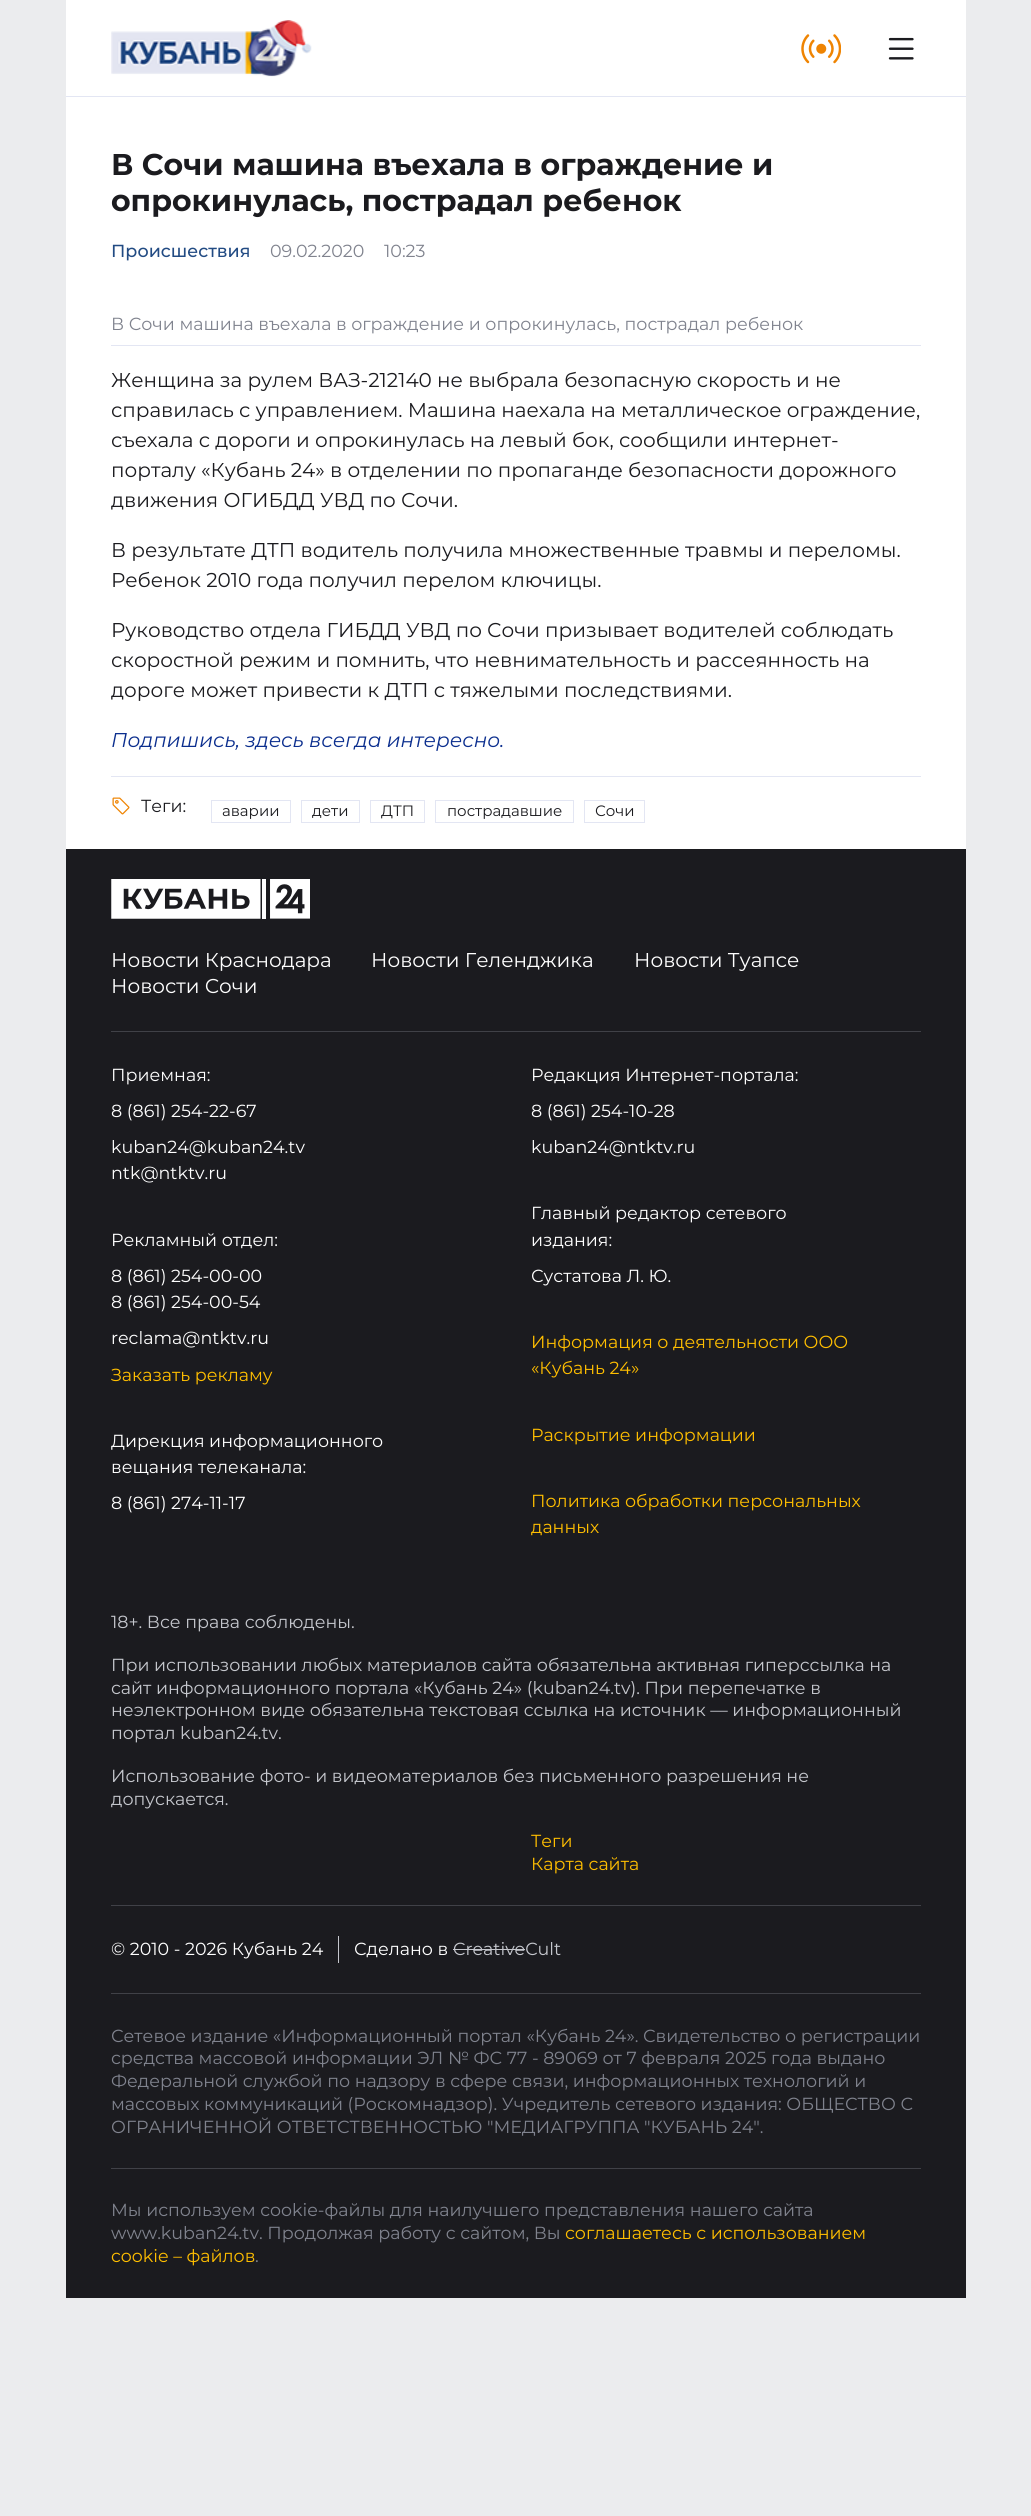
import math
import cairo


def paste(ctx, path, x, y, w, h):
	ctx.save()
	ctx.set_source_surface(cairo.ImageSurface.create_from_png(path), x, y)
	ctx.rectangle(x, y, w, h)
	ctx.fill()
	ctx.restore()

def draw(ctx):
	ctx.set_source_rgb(0.918, 0.922, 0.933)
	ctx.paint()
	ctx.set_source_rgb(1, 1, 1)
	ctx.rectangle(66, 0, 900, 849)
	ctx.fill()
	ctx.set_source_rgb(0.89, 0.902, 0.953)
	ctx.rectangle(66, 96, 900, 1)
	ctx.fill()
	paste(ctx, 'media/1.png', 111, 20, 201, 57)
	paste(ctx, 'media/2.png', 801, 34, 40, 30)
	paste(ctx, 'media/3.png', 888, 37, 26, 23)
	ctx.select_font_face('Montserrat', cairo.FONT_SLANT_NORMAL, cairo.FONT_WEIGHT_BOLD)
	ctx.set_font_size(30)
	ctx.set_source_rgb(0.106, 0.106, 0.122)
	ctx.move_to(111, 175)
	ctx.show_text('В Сочи машина въехала в ограждение и')
	ctx.move_to(111, 211)
	ctx.show_text('опрокинулась, пострадал ребенок')
	ctx.select_font_face('Montserrat Medium')
	ctx.set_font_size(17.5)
	ctx.set_source_rgb(0.133, 0.294, 0.514)
	ctx.move_to(111, 257)
	ctx.show_text('Происшествия')
	ctx.select_font_face('Montserrat')
	ctx.set_source_rgb(0.502, 0.514, 0.557)
	ctx.move_to(270, 257)
	ctx.show_text('09.02.2020')
	ctx.move_to(384, 257)
	ctx.show_text('10:23')
	ctx.set_source_rgb(0.89, 0.902, 0.953)
	ctx.rectangle(111, 345, 810, 1)
	ctx.fill()
	ctx.set_source_rgb(0.502, 0.514, 0.557)
	ctx.move_to(111, 330)
	ctx.show_text('В Сочи машина въехала в ограждение и опрокинулась, пострадал ребенок')
	ctx.set_font_size(20)
	ctx.set_source_rgb(0.106, 0.106, 0.122)
	for x, y, s in [
		(111, 387, 'Женщина за рулем ВАЗ-212140 не выбрала безопасную скорость и не'),
		(111, 417, 'справилась с управлением. Машина наехала на металлическое ограждение,'),
		(111, 447, 'съехала с дороги и опрокинулась на левый бок, сообщили интернет-'),
		(111, 477, 'порталу «Кубань 24» в отделении по пропаганде безопасности дорожного'),
		(111, 507, 'движения ОГИБДД УВД по Сочи.'),
		(111, 557, 'В результате ДТП водитель получила множественные травмы и переломы.'),
		(111, 587, 'Ребенок 2010 года получил перелом ключицы.'),
		(111, 637, 'Руководство отдела ГИБДД УВД по Сочи призывает водителей соблюдать'),
		(111, 667, 'скоростной режим и помнить, что невнимательность и рассеянность на'),
		(111, 697, 'дороге может привести к ДТП с тяжелыми последствиями.'),
	]:
		ctx.move_to(x, y)
		ctx.show_text(s)
	ctx.select_font_face('Montserrat', cairo.FONT_SLANT_ITALIC)
	ctx.set_source_rgb(0.043, 0.18, 0.557)
	ctx.move_to(111, 747)
	ctx.show_text('Подпишись, здесь всегда интересно.')
	ctx.set_source_rgb(0.89, 0.902, 0.953)
	ctx.rectangle(111, 776, 810, 1)
	ctx.fill()
	paste(ctx, 'media/4.png', 112, 797, 18, 18)
	ctx.select_font_face('Montserrat')
	ctx.set_font_size(17.5)
	ctx.set_source_rgb(0.106, 0.106, 0.122)
	ctx.move_to(141, 812)
	ctx.show_text('Теги:')
	ctx.rectangle(211.5, 800.5, 79, 22)
	ctx.set_source_rgb(0.89, 0.902, 0.953)
	ctx.set_line_width(1)
	ctx.stroke()
	ctx.set_font_size(15)
	ctx.set_source_rgb(0.106, 0.106, 0.122)
	ctx.move_to(222, 816)
	ctx.show_text('аварии')
	ctx.rectangle(301.5, 800.5, 58, 22)
	ctx.set_source_rgb(0.89, 0.902, 0.953)
	ctx.stroke()
	ctx.set_source_rgb(0.106, 0.106, 0.122)
	ctx.move_to(312, 816)
	ctx.show_text('дети')
	ctx.rectangle(370.5, 800.5, 54, 22)
	ctx.set_source_rgb(0.89, 0.902, 0.953)
	ctx.stroke()
	ctx.set_source_rgb(0.106, 0.106, 0.122)
	ctx.move_to(381, 816)
	ctx.show_text('ДТП')
	ctx.rectangle(435.5, 800.5, 138, 22)
	ctx.set_source_rgb(0.89, 0.902, 0.953)
	ctx.stroke()
	ctx.set_source_rgb(0.106, 0.106, 0.122)
	ctx.move_to(447, 816)
	ctx.show_text('пострадавшие')
	ctx.rectangle(584.5, 800.5, 60, 22)
	ctx.set_source_rgb(0.89, 0.902, 0.953)
	ctx.stroke()
	ctx.set_source_rgb(0.106, 0.106, 0.122)
	ctx.move_to(595, 816)
	ctx.show_text('Сочи')
	ctx.rectangle(66, 849, 900, 1449)
	ctx.fill()
	paste(ctx, 'media/5.png', 111, 879, 199, 40)
	ctx.set_font_size(20)
	ctx.set_source_rgb(1, 1, 1)
	for x, y, s in [
		(111, 967, 'Новости Краснодара'),
		(371, 967, 'Новости Геленджика'),
		(634, 967, 'Новости Туапсе'),
		(111, 993, 'Новости Сочи'),
	]:
		ctx.move_to(x, y)
		ctx.show_text(s)
	ctx.set_source_rgb(0.251, 0.255, 0.278)
	ctx.rectangle(111, 1031, 810, 1)
	ctx.fill()
	ctx.set_font_size(17.5)
	ctx.set_source_rgb(1, 1, 1)
	for x, y, s in [
		(111, 1081, 'Приемная:'),
		(111, 1117, '8 (861) 254-22-67'),
		(111, 1153, 'kuban24@kuban24.tv'),
		(111, 1179, 'ntk@ntktv.ru'),
		(111, 1246, 'Рекламный отдел:'),
		(111, 1282, '8 (861) 254-00-00'),
		(111, 1308, '8 (861) 254-00-54'),
		(111, 1344, 'reclama@ntktv.ru'),
	]:
		ctx.move_to(x, y)
		ctx.show_text(s)
	ctx.set_source_rgb(1, 0.745, 0)
	ctx.move_to(111, 1381)
	ctx.show_text('Заказать рекламу')
	ctx.set_source_rgb(1, 1, 1)
	for x, y, s in [
		(111, 1447, 'Дирекция информационного'),
		(111, 1473, 'вещания телеканала:'),
		(111, 1509, '8 (861) 274-11-17'),
		(531, 1081, 'Редакция Интернет-портала:'),
		(531, 1117, '8 (861) 254-10-28'),
		(531, 1153, 'kuban24@ntktv.ru'),
		(531, 1219, 'Главный редактор сетевого'),
		(531, 1246, 'издания:'),
		(531, 1282, 'Сустатова Л. Ю.'),
	]:
		ctx.move_to(x, y)
		ctx.show_text(s)
	ctx.set_source_rgb(1, 0.745, 0)
	for x, y, s in [
		(531, 1348, 'Информация о деятельности ООО'),
		(531, 1374, '«Кубань 24»'),
		(531, 1441, 'Раскрытие информации'),
		(531, 1507, 'Политика обработки персональных'),
		(531, 1533, 'данных'),
	]:
		ctx.move_to(x, y)
		ctx.show_text(s)
	ctx.set_source_rgb(0.773, 0.78, 0.804)
	for x, y, s in [
		(111, 1628, '18+. Все права соблюдены.'),
		(111, 1671, 'При использовании любых материалов сайта обязательна активная гиперссылка на'),
		(111, 1694, 'сайт информационного портала «Кубань 24» (kuban24.tv). При перепечатке в'),
		(111, 1716, 'неэлектронном виде обязательна текстовая ссылка на источник — информационный'),
		(111, 1739, 'портал kuban24.tv.'),
		(111, 1782, 'Использование фото- и видеоматериалов без письменного разрешения не'),
		(111, 1805, 'допускается.'),
	]:
		ctx.move_to(x, y)
		ctx.show_text(s)
	ctx.set_source_rgb(1, 0.745, 0)
	ctx.move_to(531, 1847)
	ctx.show_text('Теги')
	ctx.move_to(531, 1870)
	ctx.show_text('Карта сайта')
	ctx.set_source_rgb(0.251, 0.255, 0.278)
	ctx.rectangle(111, 1905, 810, 1)
	ctx.fill()
	ctx.set_source_rgb(0.773, 0.78, 0.804)
	ctx.rectangle(338, 1936, 1, 27)
	ctx.fill()
	ctx.set_source_rgb(1, 1, 1)
	ctx.move_to(111, 1955)
	ctx.show_text('© 2010 - 2026 Кубань 24')
	ctx.move_to(354, 1955)
	ctx.show_text('Сделано в')
	ctx.set_source_rgb(0.773, 0.78, 0.804)
	ctx.move_to(453, 1955)
	ctx.show_text('CreativeCult')
	ctx.rectangle(453, 1949, 72, 1)
	ctx.fill()
	ctx.set_source_rgb(0.251, 0.255, 0.278)
	ctx.rectangle(111, 1993, 810, 1)
	ctx.fill()
	ctx.set_source_rgb(0.502, 0.514, 0.557)
	for x, y, s in [
		(111, 2042, 'Сетевое издание «Информационный портал «Кубань 24». Свидетельство о регистрации'),
		(111, 2064, 'средства массовой информации ЭЛ № ФС 77 - 89069 от 7 февраля 2025 года выдано'),
		(111, 2087, 'Федеральной службой по надзору в сфере связи, информационных технологий и'),
		(111, 2110, 'массовых коммуникаций (Роскомнадзор). Учредитель сетевого издания: ОБЩЕСТВО С'),
		(111, 2133, 'ОГРАНИЧЕННОЙ ОТВЕТСТВЕННОСТЬЮ "МЕДИАГРУППА "КУБАНЬ 24".'),
	]:
		ctx.move_to(x, y)
		ctx.show_text(s)
	ctx.set_source_rgb(0.251, 0.255, 0.278)
	ctx.rectangle(111, 2168, 810, 1)
	ctx.fill()
	ctx.set_source_rgb(0.502, 0.514, 0.557)
	ctx.move_to(111, 2216)
	ctx.show_text('Мы используем cookie-файлы для наилучшего представления нашего сайта')
	ctx.move_to(111, 2239)
	ctx.show_text('www.kuban24.tv. Продолжая работу с сайтом, Вы')
	ctx.set_source_rgb(1, 0.745, 0)
	ctx.move_to(565, 2239)
	ctx.show_text('соглашаетесь с использованием')
	ctx.move_to(111, 2262)
	ctx.show_text('cookie – файлов')
	ctx.set_source_rgb(0.502, 0.514, 0.557)
	ctx.move_to(255, 2262)
	ctx.show_text('.')


surface = cairo.ImageSurface(cairo.FORMAT_RGB24, 1031, 2516)
ctx = cairo.Context(surface)
options = cairo.FontOptions()
options.set_hint_metrics(cairo.HINT_METRICS_OFF)
options.set_hint_style(cairo.HINT_STYLE_NONE)
ctx.set_font_options(options)
ctx.set_miter_limit(4)
draw(ctx)
surface.write_to_png('image.png')
